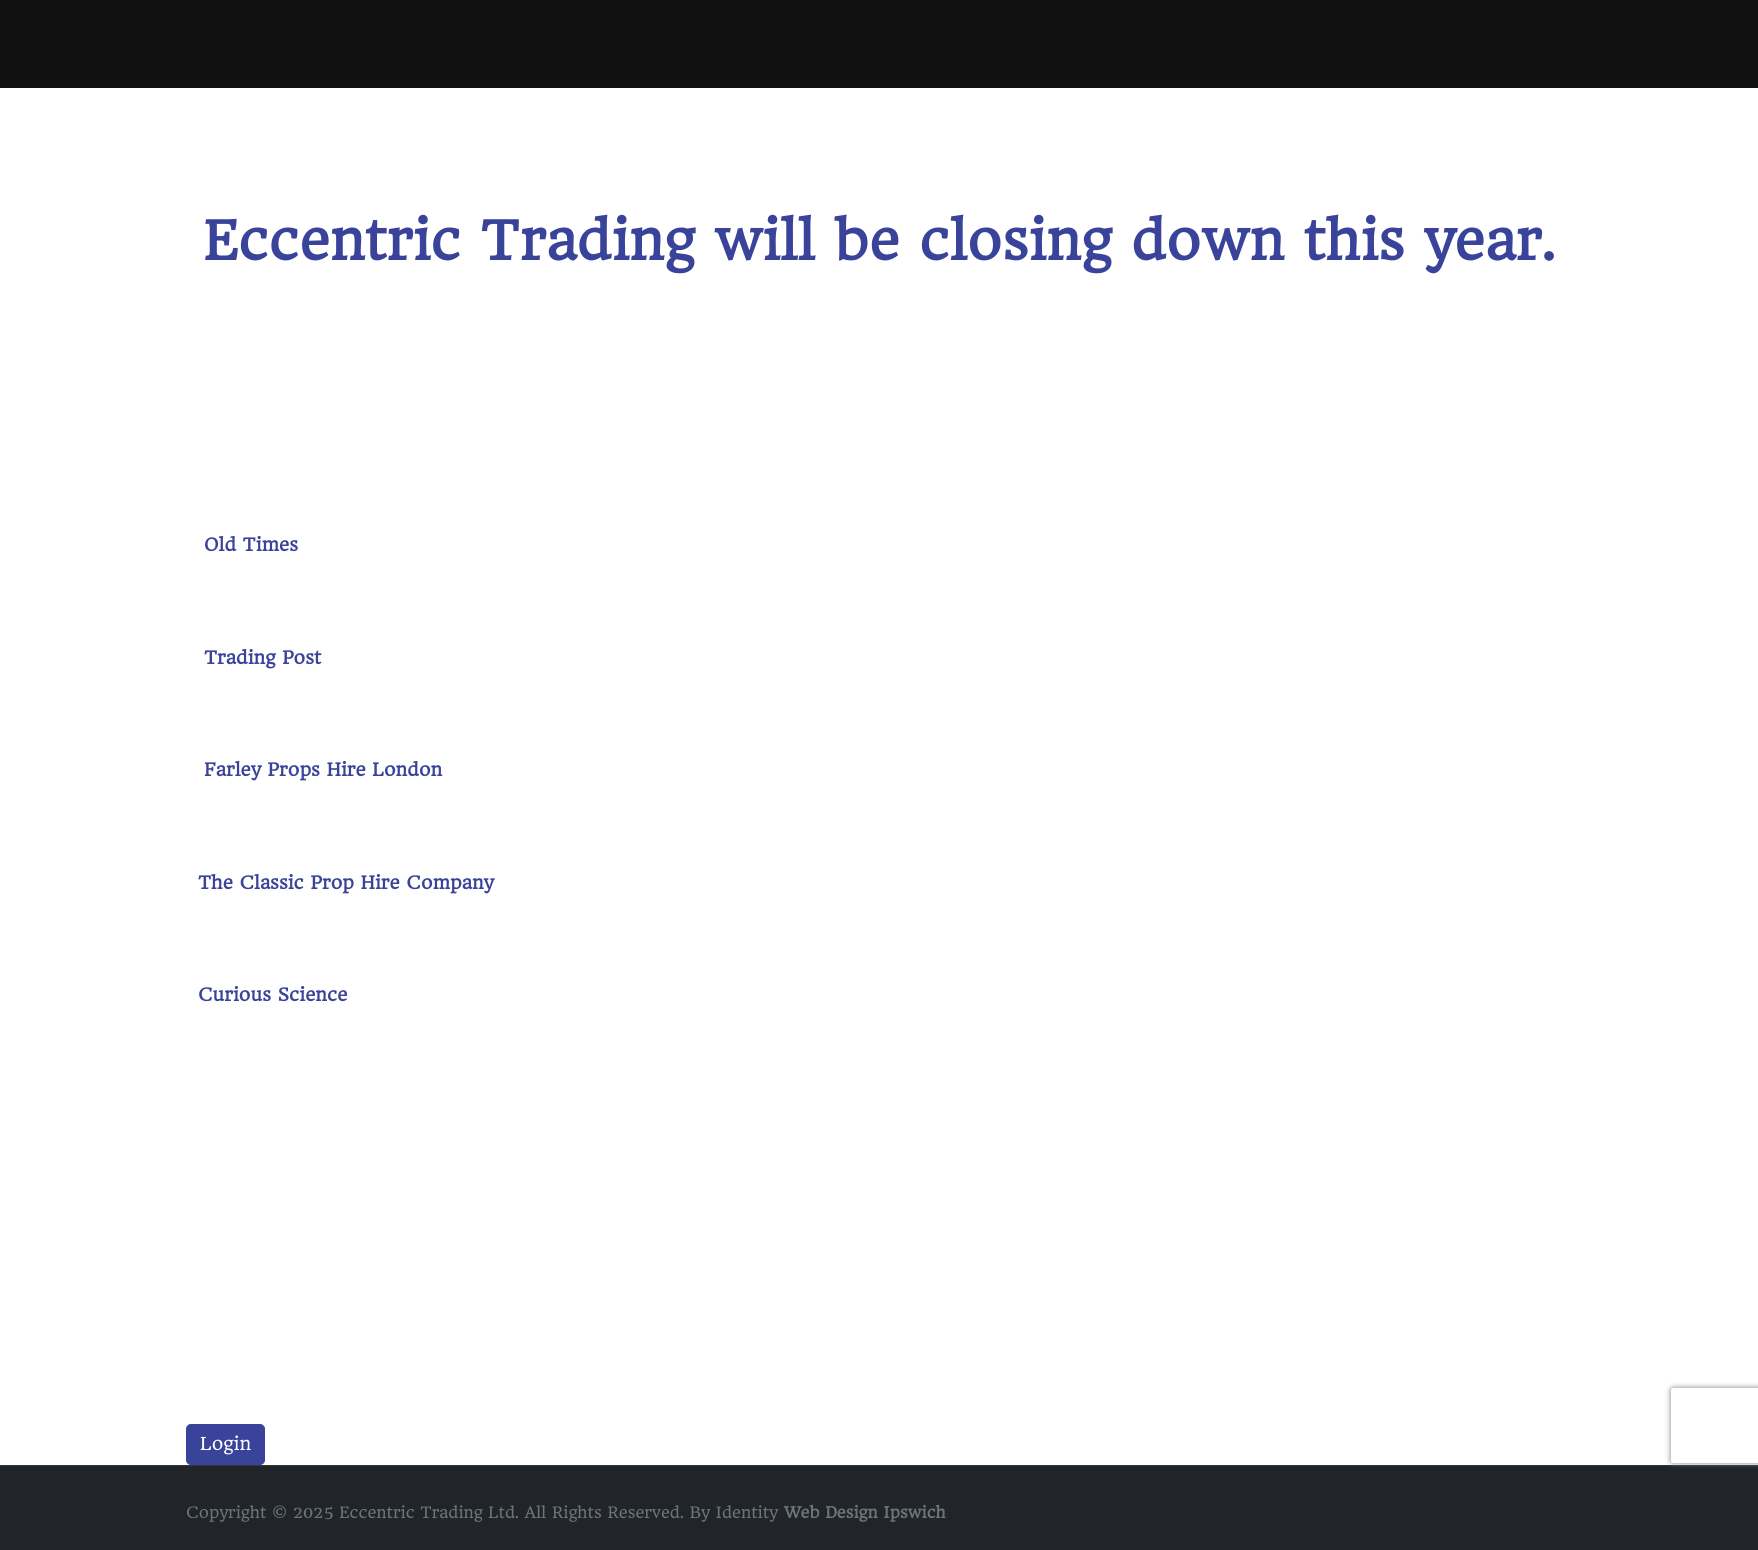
import math
import cairo


def round_path(ctx, x, y, w, h, r):
	ctx.new_sub_path()
	for i, (u, v) in enumerate([(x + w - r, y + h - r), (x + r, y + h - r), (x + r, y + r), (x + w - r, y + r)]):
		ctx.arc(u, v, r, i * math.pi / 2, (i + 1) * math.pi / 2)
	ctx.close_path()

def blur_box(ctx, x, y, w, h, r, blur, alpha):
	ctx.push_group_with_content(cairo.CONTENT_ALPHA)
	ctx.set_operator(cairo.OPERATOR_SOURCE)
	for i in range(15, -16, -2):
		e = blur * i / 6
		if min(w, h) + 2 * e > 0:
			ctx.set_source_rgba(0, 0, 0, alpha * math.erfc((i - 1) / 8.5) / 2)
			round_path(ctx, x - e, y - e, w + 2 * e, h + 2 * e, max(0, min(r + e + blur * .6, min(w, h) / 2 + e)))
			ctx.fill()
	ctx.mask(ctx.pop_group())

def draw(ctx):
	ctx.set_source_rgb(1, 1, 1)
	ctx.paint()
	ctx.set_source_rgb(0.067, 0.067, 0.067)
	ctx.rectangle(0, 0, 1758, 88)
	ctx.fill()
	ctx.select_font_face('HeadlandOne', cairo.FONT_SLANT_NORMAL, cairo.FONT_WEIGHT_BOLD)
	ctx.set_font_size(52.5)
	ctx.set_source_rgb(0.227, 0.263, 0.604)
	ctx.move_to(203, 260)
	ctx.show_text('Eccentric Trading will be closing down this year.')
	ctx.set_font_size(17.5)
	for x, y, s in [
		(204, 551, 'Old Times'),
		(204, 664, 'Trading Post'),
		(204, 776, 'Farley Props Hire London'),
		(198, 889, 'The Classic Prop Hire Company'),
		(198, 1001, 'Curious Science'),
	]:
		ctx.move_to(x, y)
		ctx.show_text(s)
	round_path(ctx, 186.5, 1424.5, 78, 40, 4.5)
	ctx.fill_preserve()
	ctx.set_line_width(1)
	ctx.stroke()
	ctx.select_font_face('HeadlandOne')
	ctx.set_source_rgb(1, 1, 1)
	ctx.move_to(200, 1450)
	ctx.show_text('Login')
	ctx.set_source_rgb(0.129, 0.145, 0.161)
	ctx.rectangle(0, 1466, 1758, 84)
	ctx.fill()
	ctx.set_source_rgb(0.192, 0.204, 0.22)
	ctx.rectangle(0, 1465, 1758, 1)
	ctx.fill()
	ctx.set_font_size(15.3)
	ctx.set_source_rgb(0.424, 0.459, 0.49)
	ctx.move_to(186, 1518)
	ctx.show_text('Copyright © 2025 Eccentric Trading Ltd. All Rights Reserved. By Identity')
	ctx.select_font_face('HeadlandOne', cairo.FONT_SLANT_NORMAL, cairo.FONT_WEIGHT_BOLD)
	ctx.move_to(784, 1518)
	ctx.show_text('Web Design Ipswich')
	ctx.save()
	ctx.set_fill_rule(cairo.FILL_RULE_EVEN_ODD)
	ctx.new_path()
	ctx.move_to(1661, 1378)
	ctx.line_to(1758, 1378)
	ctx.line_to(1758, 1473)
	ctx.line_to(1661, 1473)
	ctx.close_path()
	ctx.move_to(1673.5, 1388)
	ctx.line_to(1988.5, 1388)
	ctx.curve_to(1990, 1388, 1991, 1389, 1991, 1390.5)
	ctx.line_to(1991, 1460.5)
	ctx.curve_to(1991, 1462, 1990, 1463, 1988.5, 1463)
	ctx.line_to(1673.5, 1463)
	ctx.curve_to(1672, 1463, 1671, 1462, 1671, 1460.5)
	ctx.line_to(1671, 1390.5)
	ctx.curve_to(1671, 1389, 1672, 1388, 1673.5, 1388)
	ctx.close_path()
	ctx.clip()
	ctx.set_source_rgb(0.502, 0.502, 0.502)
	blur_box(ctx, 1671, 1388, 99, 75, 2.5, 3, 1)
	ctx.restore()


surface = cairo.ImageSurface(cairo.FORMAT_RGB24, 1758, 1550)
ctx = cairo.Context(surface)
options = cairo.FontOptions()
options.set_hint_metrics(cairo.HINT_METRICS_OFF)
options.set_hint_style(cairo.HINT_STYLE_NONE)
ctx.set_font_options(options)
ctx.set_miter_limit(4)
draw(ctx)
surface.write_to_png('image.png')
